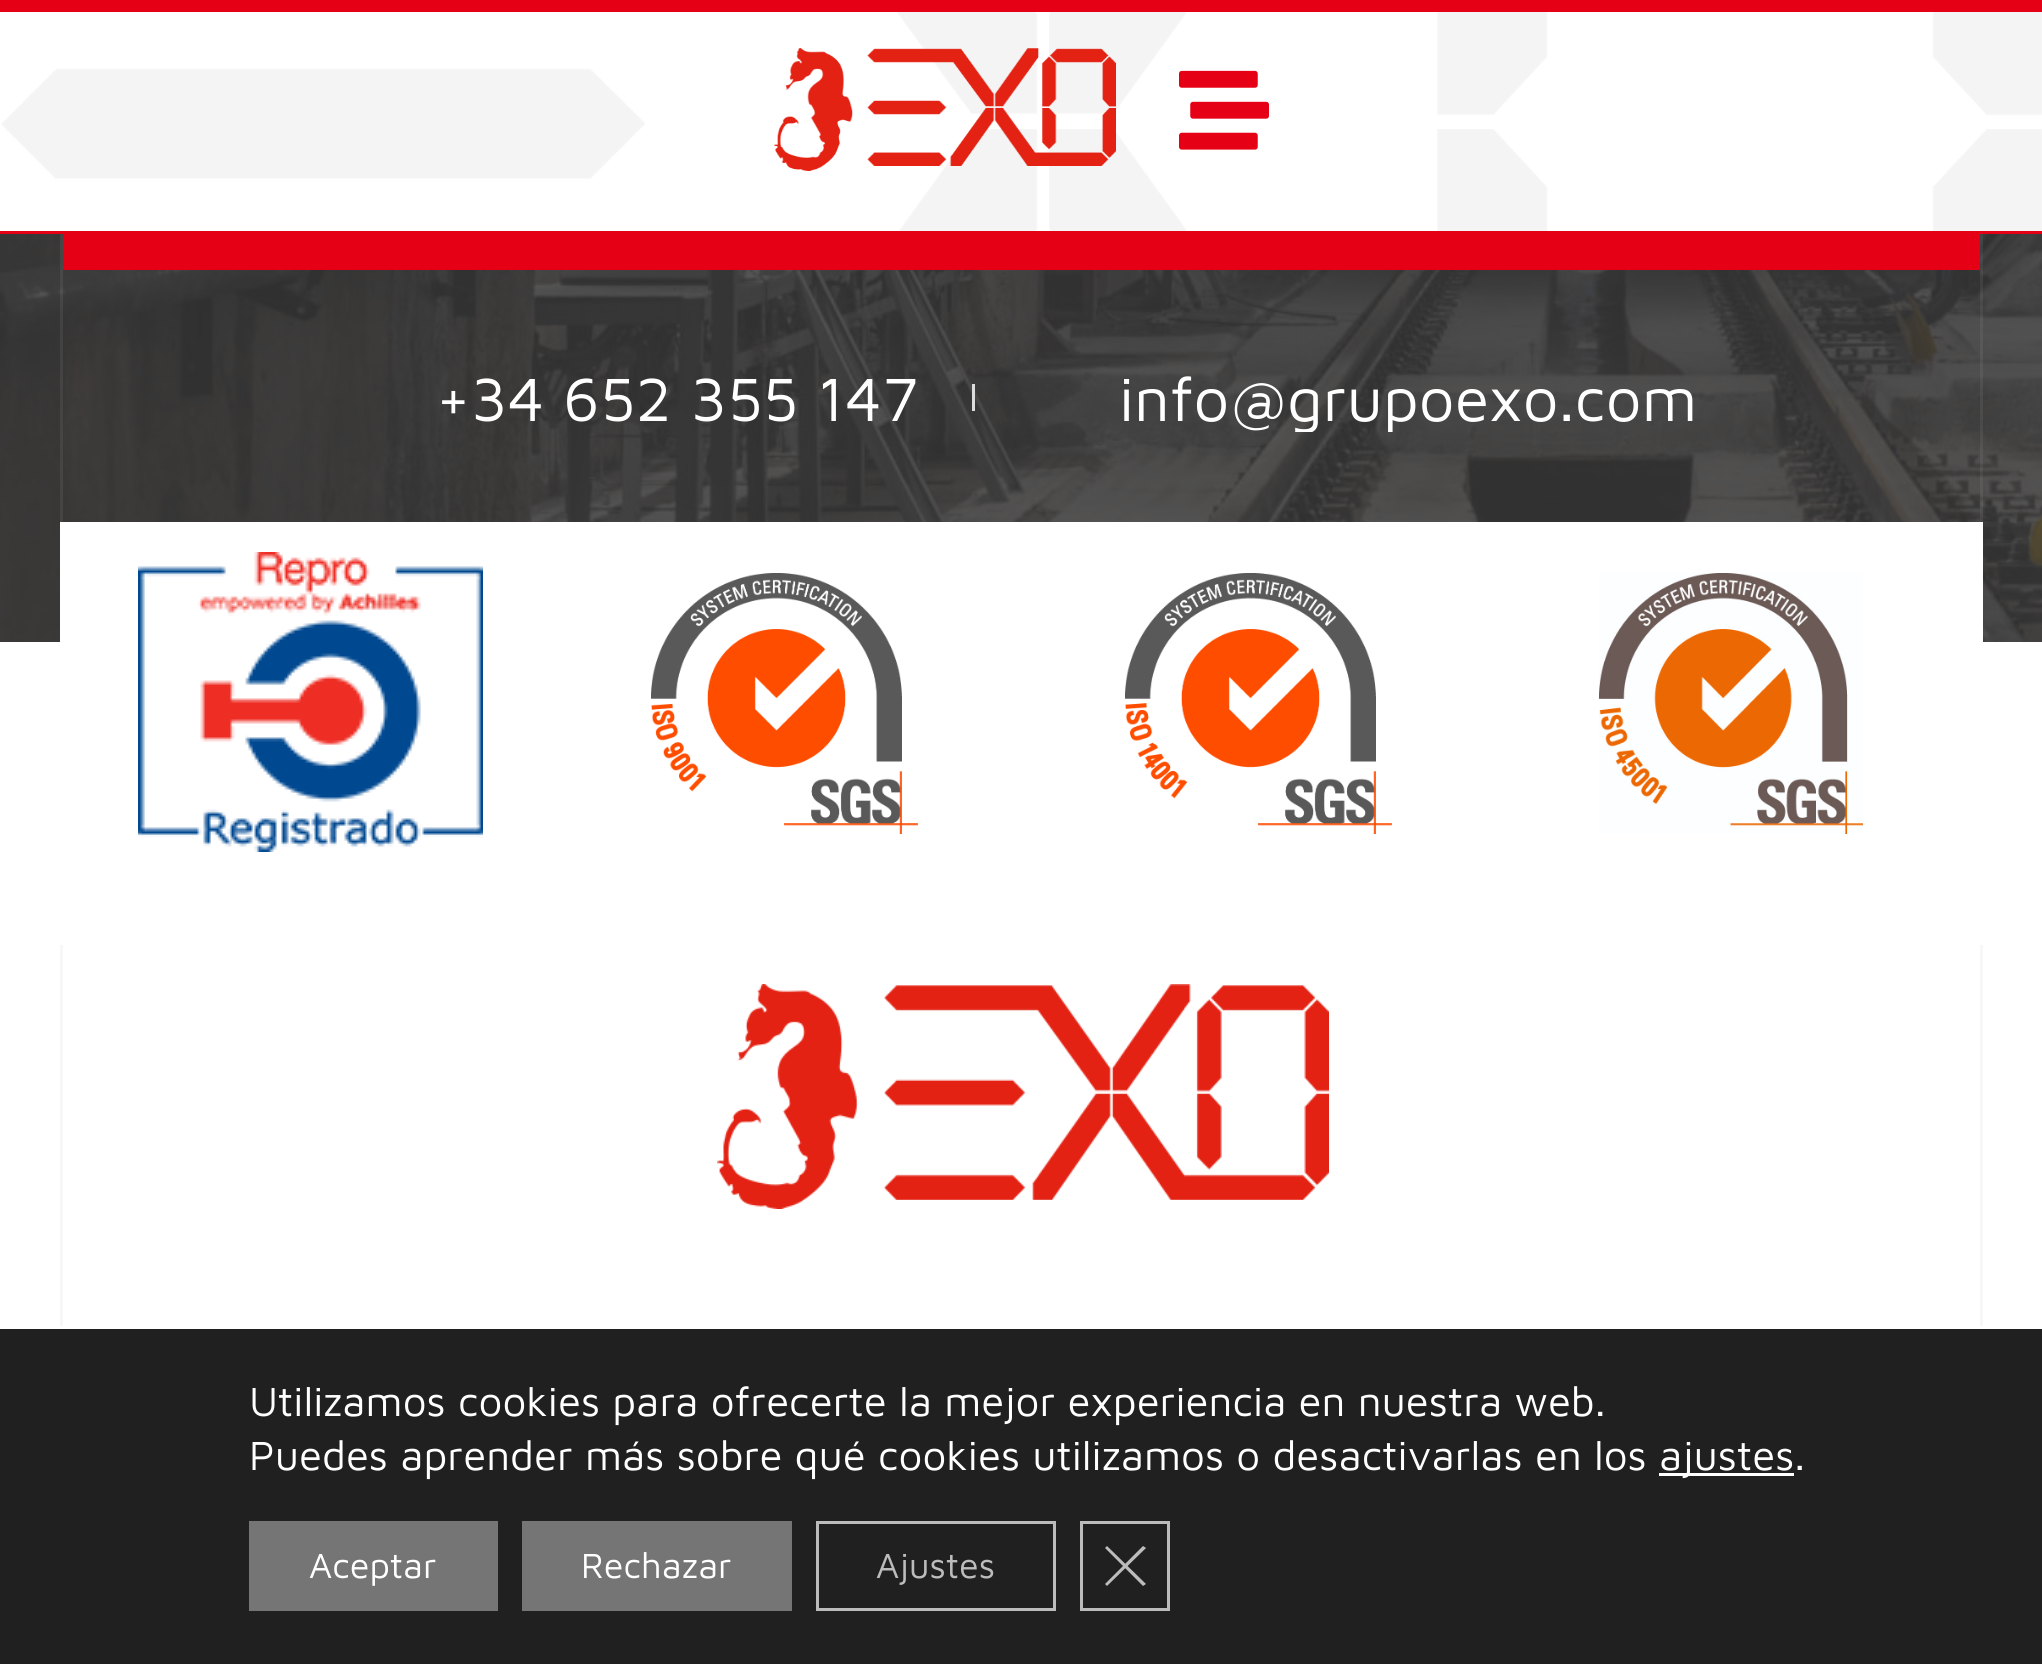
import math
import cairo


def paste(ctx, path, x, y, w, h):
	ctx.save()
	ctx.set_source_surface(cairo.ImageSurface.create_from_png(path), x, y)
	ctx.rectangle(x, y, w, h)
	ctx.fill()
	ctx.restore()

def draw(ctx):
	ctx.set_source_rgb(1, 1, 1)
	ctx.paint()
	ctx.set_source_rgb(0.902, 0, 0.086)
	ctx.rectangle(0, 0, 2042, 12)
	ctx.fill()
	ctx.rectangle(0, 231, 2042, 3)
	ctx.fill()
	paste(ctx, 'media/1.png', 1, 12, 2041, 219)
	paste(ctx, 'media/2.png', 774, 48, 342, 123)
	paste(ctx, 'media/3.png', 1179, 70, 90, 80)
	ctx.set_source_rgb(0.224, 0.22, 0.22)
	ctx.rectangle(0, 234, 2042, 408)
	ctx.fill()
	paste(ctx, 'media/4.png', 0, 234, 2042, 408)
	ctx.set_source_rgba(0.678, 0.678, 0.678, 0.11)
	ctx.rectangle(1980, 234, 3, 288)
	ctx.fill()
	ctx.rectangle(60, 234, 3, 288)
	ctx.fill()
	ctx.set_source_rgb(0.902, 0, 0.086)
	ctx.rectangle(63, 234, 1917, 36)
	ctx.fill()
	ctx.select_font_face('Maven Pro')
	ctx.set_font_size(63)
	ctx.set_source_rgb(1, 1, 1)
	ctx.move_to(436, 421)
	ctx.show_text('+34 652 355 147')
	ctx.set_source_rgb(0.867, 0.867, 0.867)
	ctx.rectangle(972, 384, 3, 27)
	ctx.fill()
	ctx.save()
	ctx.rectangle(63, 360, 1917, 72)
	ctx.clip()
	ctx.set_source_rgb(1, 1, 1)
	ctx.move_to(1119, 421)
	ctx.show_text('info@grupoexo.com')
	ctx.restore()
	ctx.set_source_rgb(1, 1, 1)
	ctx.rectangle(60, 522, 1923, 120)
	ctx.fill()
	paste(ctx, 'media/5.png', 138, 552, 345, 300)
	paste(ctx, 'media/6.png', 651, 573, 267, 261)
	paste(ctx, 'media/7.png', 1125, 573, 267, 261)
	paste(ctx, 'media/8.png', 1599, 573, 264, 261)
	ctx.set_source_rgb(0.965, 0.965, 0.965)
	ctx.rectangle(1980, 945, 3, 381)
	ctx.fill()
	ctx.rectangle(60, 945, 3, 381)
	ctx.fill()
	paste(ctx, 'media/9.png', 717, 984, 612, 225)
	ctx.set_source_rgb(0.125, 0.125, 0.125)
	ctx.rectangle(0, 1329, 2042, 335)
	ctx.fill()
	ctx.set_font_size(42)
	ctx.set_source_rgb(1, 1, 1)
	ctx.move_to(249, 1416)
	ctx.show_text('Utilizamos cookies para ofrecerte la mejor experiencia en nuestra web.')
	ctx.move_to(249, 1470)
	ctx.show_text('Puedes aprender más sobre qué cookies utilizamos o desactivarlas en los')
	ctx.rectangle(1659, 1473, 135, 3)
	ctx.fill()
	ctx.move_to(1659, 1470)
	ctx.show_text('ajustes.')
	ctx.set_source_rgb(0.459, 0.459, 0.459)
	ctx.rectangle(249, 1521, 249, 90)
	ctx.fill()
	ctx.set_font_size(36)
	ctx.set_source_rgb(1, 1, 1)
	ctx.move_to(309, 1578)
	ctx.show_text('Aceptar')
	ctx.set_source_rgb(0.459, 0.459, 0.459)
	ctx.rectangle(522, 1521, 270, 90)
	ctx.fill()
	ctx.set_source_rgb(1, 1, 1)
	ctx.move_to(581, 1578)
	ctx.show_text('Rechazar')
	ctx.rectangle(817.5, 1522.5, 237, 87)
	ctx.set_source_rgb(0.737, 0.737, 0.737)
	ctx.set_line_width(3)
	ctx.stroke()
	ctx.move_to(876, 1578)
	ctx.show_text('Ajustes')
	ctx.rectangle(1081.5, 1522.5, 87, 87)
	ctx.stroke()
	ctx.new_path()
	ctx.move_to(1143, 1546)
	ctx.line_to(1146, 1548)
	ctx.line_to(1107, 1586)
	ctx.line_to(1105, 1584)
	ctx.close_path()
	ctx.fill()
	ctx.new_path()
	ctx.move_to(1105, 1548)
	ctx.line_to(1107, 1546)
	ctx.line_to(1146, 1584)
	ctx.line_to(1143, 1586)
	ctx.close_path()
	ctx.fill()


surface = cairo.ImageSurface(cairo.FORMAT_RGB24, 2042, 1664)
ctx = cairo.Context(surface)
options = cairo.FontOptions()
options.set_hint_metrics(cairo.HINT_METRICS_OFF)
options.set_hint_style(cairo.HINT_STYLE_NONE)
ctx.set_font_options(options)
ctx.set_miter_limit(4)
draw(ctx)
surface.write_to_png('image.png')
